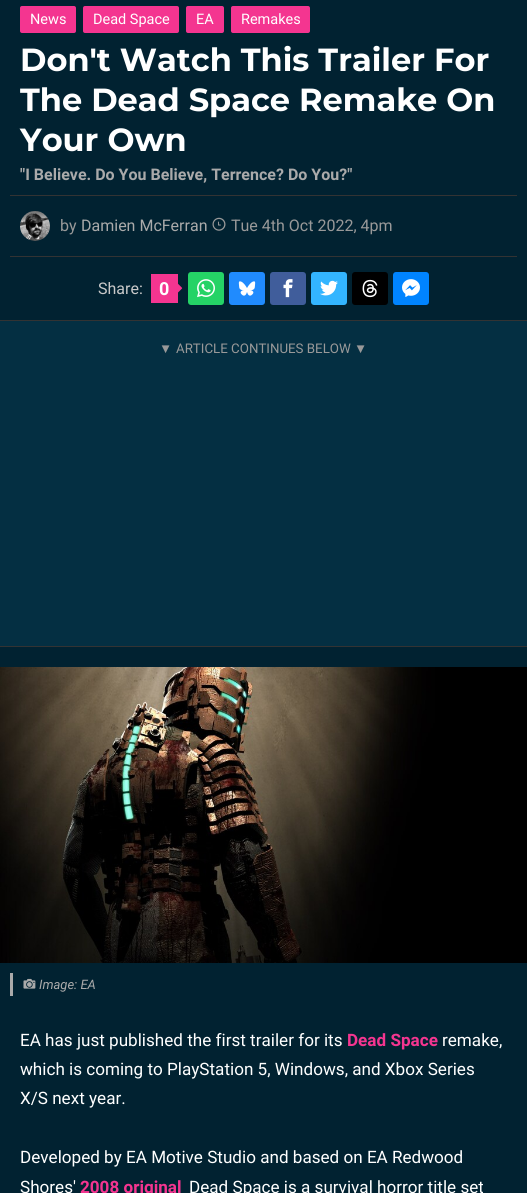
import math
import cairo


def round_path(ctx, x, y, w, h, r):
	ctx.new_sub_path()
	for i, (u, v) in enumerate([(x + w - r, y + h - r), (x + r, y + h - r), (x + r, y + r), (x + w - r, y + r)]):
		ctx.arc(u, v, r, i * math.pi / 2, (i + 1) * math.pi / 2)
	ctx.close_path()

def paste(ctx, path, x, y, w, h):
	ctx.save()
	ctx.set_source_surface(cairo.ImageSurface.create_from_png(path), x, y)
	ctx.rectangle(x, y, w, h)
	ctx.fill()
	ctx.restore()

def draw(ctx):
	ctx.set_source_rgb(0.004, 0.133, 0.192)
	ctx.paint()
	ctx.set_source_rgb(0.2, 0.2, 0.2)
	ctx.rectangle(10, 195, 507, 1)
	ctx.fill()
	ctx.set_source_rgb(0.957, 0.208, 0.565)
	round_path(ctx, 20, 6, 56, 27, 2)
	ctx.fill()
	ctx.select_font_face('Roboto')
	ctx.set_font_size(14.5)
	ctx.set_source_rgb(1, 1, 1)
	ctx.move_to(30, 24)
	ctx.show_text('News')
	ctx.set_source_rgb(0.957, 0.208, 0.565)
	round_path(ctx, 83, 6, 96, 27, 2)
	ctx.fill()
	ctx.set_source_rgb(1, 1, 1)
	ctx.move_to(93, 24)
	ctx.show_text('Dead Space')
	ctx.set_source_rgb(0.957, 0.208, 0.565)
	round_path(ctx, 186, 6, 38, 27, 2)
	ctx.fill()
	ctx.set_source_rgb(1, 1, 1)
	ctx.move_to(196, 24)
	ctx.show_text('EA')
	ctx.set_source_rgb(0.957, 0.208, 0.565)
	round_path(ctx, 231, 6, 79, 27, 2)
	ctx.fill()
	ctx.set_source_rgb(1, 1, 1)
	ctx.move_to(241, 24)
	ctx.show_text('Remakes')
	ctx.select_font_face('Montserrat', cairo.FONT_SLANT_NORMAL, cairo.FONT_WEIGHT_BOLD)
	ctx.set_font_size(32)
	for x, y, s in [
		(20, 71, 'Don\'t Watch This Trailer For'),
		(20, 111, 'The Dead Space Remake On'),
		(20, 151, 'Your Own'),
	]:
		ctx.move_to(x, y)
		ctx.show_text(s)
	ctx.select_font_face('Roboto', cairo.FONT_SLANT_NORMAL, cairo.FONT_WEIGHT_BOLD)
	ctx.set_font_size(16)
	ctx.set_source_rgb(0.667, 0.667, 0.667)
	ctx.move_to(20, 180)
	ctx.show_text('"I Believe. Do You Believe, Terrence? Do You?"')
	paste(ctx, 'media/1.png', 20, 211, 30, 30)
	ctx.select_font_face('Roboto')
	ctx.set_source_rgb(0.6, 0.6, 0.6)
	ctx.move_to(60, 231)
	ctx.show_text('by')
	ctx.set_source_rgb(0.667, 0.667, 0.667)
	ctx.move_to(81, 231)
	ctx.show_text('Damien McFerran')
	paste(ctx, 'media/2.png', 212, 217, 14, 14)
	ctx.set_source_rgb(0.6, 0.6, 0.6)
	ctx.move_to(231, 231)
	ctx.show_text('Tue 4th Oct 2022, 4pm')
	ctx.set_source_rgb(0.2, 0.2, 0.2)
	ctx.rectangle(10, 256, 507, 1)
	ctx.fill()
	ctx.set_source_rgb(0.788, 0.788, 0.788)
	ctx.move_to(98, 294)
	ctx.show_text('Share:')
	ctx.set_source_rgb(0.957, 0.208, 0.565)
	ctx.rectangle(151, 274, 27, 29)
	ctx.fill()
	ctx.select_font_face('Roboto', cairo.FONT_SLANT_NORMAL, cairo.FONT_WEIGHT_BOLD)
	ctx.set_font_size(18)
	ctx.set_source_rgb(1, 1, 1)
	ctx.move_to(159, 295)
	ctx.show_text('0')
	paste(ctx, 'media/3.png', 178, 283, 5, 10)
	ctx.set_source_rgb(0.145, 0.827, 0.4)
	round_path(ctx, 188, 272, 36, 33, 3)
	ctx.fill()
	paste(ctx, 'media/4.png', 197, 279, 18, 19)
	ctx.set_source_rgb(0.125, 0.545, 0.996)
	round_path(ctx, 229, 272, 36, 33, 3)
	ctx.fill()
	paste(ctx, 'media/5.png', 238, 281, 18, 15)
	ctx.set_source_rgb(0.251, 0.365, 0.608)
	round_path(ctx, 270, 272, 36, 33, 3)
	ctx.fill()
	paste(ctx, 'media/6.png', 283, 279, 10, 19)
	ctx.set_source_rgb(0.2, 0.71, 1)
	round_path(ctx, 311, 272, 36, 33, 3)
	ctx.fill()
	paste(ctx, 'media/7.png', 320, 280, 18, 16)
	ctx.set_source_rgb(0, 0, 0)
	round_path(ctx, 352, 272, 36, 33, 3)
	ctx.fill()
	paste(ctx, 'media/8.png', 362, 279, 16, 19)
	ctx.set_source_rgb(0, 0.518, 1)
	round_path(ctx, 393, 272, 36, 33, 3)
	ctx.fill()
	paste(ctx, 'media/9.png', 402, 279, 18, 18)
	ctx.set_source_rgb(0.016, 0.184, 0.259)
	ctx.rectangle(0, 321, 527, 325)
	ctx.fill()
	ctx.set_source_rgb(0.2, 0.2, 0.2)
	ctx.rectangle(0, 320, 527, 1)
	ctx.rectangle(0, 646, 527, 1)
	ctx.fill()
	ctx.select_font_face('Liberation Sans')
	ctx.set_font_size(13.3)
	ctx.set_source_rgb(0.6, 0.6, 0.6)
	ctx.move_to(159, 353)
	ctx.show_text('▼')
	ctx.select_font_face('Roboto')
	ctx.move_to(176, 353)
	ctx.show_text('ARTICLE CONTINUES BELOW')
	ctx.select_font_face('Liberation Sans')
	ctx.move_to(354, 353)
	ctx.show_text('▼')
	paste(ctx, 'media/10.png', 0, 667, 527, 296)
	ctx.set_source_rgb(0.667, 0.667, 0.667)
	ctx.rectangle(10, 973, 3, 23)
	ctx.fill()
	paste(ctx, 'media/11.png', 23, 978, 13, 11)
	ctx.select_font_face('Roboto', cairo.FONT_SLANT_ITALIC)
	ctx.set_font_size(13)
	ctx.move_to(39, 989)
	ctx.show_text('Image: EA')
	ctx.select_font_face('Roboto')
	ctx.set_font_size(17.1)
	ctx.set_source_rgb(1, 1, 1)
	ctx.move_to(20, 1046)
	ctx.show_text('EA has just published the first trailer for its')
	ctx.select_font_face('Roboto', cairo.FONT_SLANT_NORMAL, cairo.FONT_WEIGHT_BOLD)
	ctx.set_source_rgb(0.957, 0.208, 0.565)
	ctx.move_to(347, 1046)
	ctx.show_text('Dead Space')
	ctx.select_font_face('Roboto')
	ctx.set_source_rgb(1, 1, 1)
	for x, y, s in [
		(442, 1046, 'remake,'),
		(20, 1075, 'which is coming to PlayStation 5, Windows, and Xbox Series'),
		(20, 1104, 'X/S next year.'),
		(20, 1163, 'Developed by EA Motive Studio and based on EA Redwood'),
		(20, 1193, 'Shores\''),
	]:
		ctx.move_to(x, y)
		ctx.show_text(s)
	ctx.select_font_face('Roboto', cairo.FONT_SLANT_NORMAL, cairo.FONT_WEIGHT_BOLD)
	ctx.set_source_rgb(0.957, 0.208, 0.565)
	ctx.move_to(80, 1193)
	ctx.show_text('2008 original')
	ctx.select_font_face('Roboto')
	ctx.set_source_rgb(1, 1, 1)
	ctx.move_to(189, 1193)
	ctx.show_text('Dead Space is a survival horror title set')


surface = cairo.ImageSurface(cairo.FORMAT_RGB24, 527, 1193)
ctx = cairo.Context(surface)
options = cairo.FontOptions()
options.set_hint_metrics(cairo.HINT_METRICS_OFF)
options.set_hint_style(cairo.HINT_STYLE_NONE)
ctx.set_font_options(options)
ctx.set_miter_limit(4)
draw(ctx)
surface.write_to_png('image.png')
